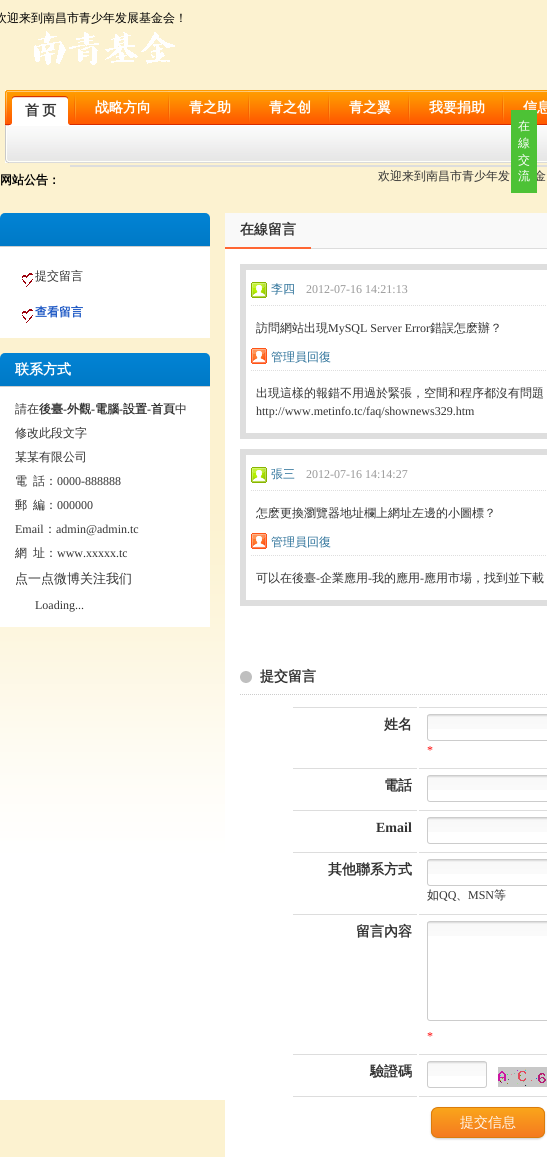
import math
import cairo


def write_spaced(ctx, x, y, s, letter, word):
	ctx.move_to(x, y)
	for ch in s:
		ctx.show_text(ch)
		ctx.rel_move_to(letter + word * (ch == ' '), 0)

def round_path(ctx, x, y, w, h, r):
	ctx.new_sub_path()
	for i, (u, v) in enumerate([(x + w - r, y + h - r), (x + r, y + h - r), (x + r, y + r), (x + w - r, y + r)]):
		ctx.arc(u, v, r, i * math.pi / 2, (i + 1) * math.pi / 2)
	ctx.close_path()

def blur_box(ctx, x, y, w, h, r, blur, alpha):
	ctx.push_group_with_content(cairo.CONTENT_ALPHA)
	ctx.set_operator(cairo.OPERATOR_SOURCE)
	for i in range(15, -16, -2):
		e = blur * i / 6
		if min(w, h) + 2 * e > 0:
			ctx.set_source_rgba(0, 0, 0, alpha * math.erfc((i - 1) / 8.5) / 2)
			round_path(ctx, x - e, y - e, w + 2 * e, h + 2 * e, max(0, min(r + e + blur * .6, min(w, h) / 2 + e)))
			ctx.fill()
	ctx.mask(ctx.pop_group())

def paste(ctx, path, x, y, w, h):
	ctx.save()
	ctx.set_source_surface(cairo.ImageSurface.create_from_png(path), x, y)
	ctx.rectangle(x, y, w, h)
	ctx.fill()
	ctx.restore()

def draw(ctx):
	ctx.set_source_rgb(1, 1, 1)
	ctx.paint()
	paste(ctx, 'media/1.png', 0, 0, 547, 1157)
	ctx.select_font_face('WenQuanYi Zen Hei Medium')
	ctx.set_font_size(12)
	ctx.set_source_rgb(0, 0, 0)
	ctx.move_to(-5, 22)
	ctx.show_text('欢迎来到南昌市青少年发展基金会！')
	paste(ctx, 'media/2.png', 34, 31, 141, 34)
	paste(ctx, 'media/3.png', 5, 90, 4, 73)
	paste(ctx, 'media/4.png', 9, 90, 538, 73)
	paste(ctx, 'media/5.png', 10, 96, 5, 29)
	paste(ctx, 'media/6.png', 15, 96, 55, 29)
	ctx.select_font_face('WenQuanYi Zen Hei', cairo.FONT_SLANT_NORMAL, cairo.FONT_WEIGHT_BOLD)
	ctx.set_font_size(14)
	ctx.set_source_rgb(0.2, 0.2, 0.2)
	write_spaced(ctx, 25, 115, '首 页', 0, -1)
	paste(ctx, 'media/7.png', 74, 91, 2, 31)
	ctx.set_source_rgb(1, 1, 1)
	ctx.move_to(95, 112)
	ctx.show_text('战略方向')
	paste(ctx, 'media/7.png', 168, 91, 2, 31)
	ctx.move_to(189, 112)
	ctx.show_text('青之助')
	paste(ctx, 'media/7.png', 248, 91, 2, 31)
	ctx.move_to(269, 112)
	ctx.show_text('青之创')
	paste(ctx, 'media/7.png', 328, 91, 2, 31)
	ctx.move_to(349, 112)
	ctx.show_text('青之翼')
	paste(ctx, 'media/7.png', 408, 91, 2, 31)
	ctx.move_to(429, 112)
	ctx.show_text('我要捐助')
	paste(ctx, 'media/7.png', 502, 91, 2, 31)
	ctx.move_to(523, 112)
	ctx.show_text('信息')
	ctx.set_source_rgb(0.867, 0.867, 0.867)
	ctx.rectangle(70, 165, 477, 2)
	ctx.fill()
	ctx.select_font_face('WenQuanYi Zen Hei Medium')
	ctx.set_font_size(12)
	ctx.set_source_rgb(0.2, 0.2, 0.2)
	ctx.move_to(534, 180)
	ctx.show_text('金')
	ctx.set_source_rgb(0.302, 0.761, 0.212)
	ctx.rectangle(511, 110, 26, 83)
	ctx.fill()
	ctx.set_source_rgb(1, 1, 1)
	for x, y, s in [
		(518, 130, '在'),
		(518, 147, '線'),
		(518, 164, '交'),
		(518, 180, '流'),
	]:
		ctx.move_to(x, y)
		ctx.show_text(s)
	ctx.select_font_face('WenQuanYi Zen Hei', cairo.FONT_SLANT_NORMAL, cairo.FONT_WEIGHT_BOLD)
	ctx.set_source_rgb(0, 0, 0)
	ctx.move_to(0, 184)
	ctx.show_text('网站公告：')
	ctx.select_font_face('WenQuanYi Zen Hei Medium')
	ctx.set_source_rgb(0.2, 0.2, 0.2)
	ctx.move_to(378, 180)
	ctx.show_text('欢迎来到南昌市青少年发')
	paste(ctx, 'media/8.png', 0, 213, 210, 33)
	ctx.set_source_rgb(0.808, 0.808, 0.808)
	ctx.rectangle(0, 246, 210, 1)
	ctx.fill()
	ctx.set_source_rgb(1, 1, 1)
	ctx.rectangle(0, 247, 210, 91)
	ctx.fill()
	paste(ctx, 'media/9.png', 22, 273, 11, 14)
	ctx.set_source_rgb(0.2, 0.2, 0.2)
	ctx.move_to(35, 280)
	ctx.show_text('提交留言')
	paste(ctx, 'media/9.png', 22, 309, 11, 14)
	ctx.select_font_face('WenQuanYi Zen Hei', cairo.FONT_SLANT_NORMAL, cairo.FONT_WEIGHT_BOLD)
	ctx.set_source_rgb(0.11, 0.341, 0.769)
	ctx.move_to(35, 316)
	ctx.show_text('查看留言')
	paste(ctx, 'media/8.png', 0, 353, 210, 33)
	ctx.set_source_rgb(0.808, 0.808, 0.808)
	ctx.rectangle(0, 386, 210, 1)
	ctx.fill()
	ctx.set_font_size(14)
	ctx.set_source_rgb(1, 1, 1)
	ctx.move_to(15, 374)
	ctx.show_text('联系方式')
	ctx.rectangle(0, 387, 210, 240)
	ctx.fill()
	ctx.select_font_face('WenQuanYi Zen Hei Medium')
	ctx.set_font_size(12)
	ctx.set_source_rgb(0.2, 0.2, 0.2)
	ctx.move_to(15, 413)
	ctx.show_text('請在')
	ctx.select_font_face('WenQuanYi Zen Hei', cairo.FONT_SLANT_NORMAL, cairo.FONT_WEIGHT_BOLD)
	ctx.move_to(39, 413)
	ctx.show_text('後臺')
	ctx.select_font_face('Liberation Serif', cairo.FONT_SLANT_NORMAL, cairo.FONT_WEIGHT_BOLD)
	ctx.move_to(63, 413)
	ctx.show_text('-')
	ctx.select_font_face('WenQuanYi Zen Hei', cairo.FONT_SLANT_NORMAL, cairo.FONT_WEIGHT_BOLD)
	ctx.move_to(67, 413)
	ctx.show_text('外觀')
	ctx.select_font_face('Liberation Serif', cairo.FONT_SLANT_NORMAL, cairo.FONT_WEIGHT_BOLD)
	ctx.move_to(91, 413)
	ctx.show_text('-')
	ctx.select_font_face('WenQuanYi Zen Hei', cairo.FONT_SLANT_NORMAL, cairo.FONT_WEIGHT_BOLD)
	ctx.move_to(95, 413)
	ctx.show_text('電腦')
	ctx.select_font_face('Liberation Serif', cairo.FONT_SLANT_NORMAL, cairo.FONT_WEIGHT_BOLD)
	ctx.move_to(119, 413)
	ctx.show_text('-')
	ctx.select_font_face('WenQuanYi Zen Hei', cairo.FONT_SLANT_NORMAL, cairo.FONT_WEIGHT_BOLD)
	ctx.move_to(123, 413)
	ctx.show_text('設置')
	ctx.select_font_face('Liberation Serif', cairo.FONT_SLANT_NORMAL, cairo.FONT_WEIGHT_BOLD)
	ctx.move_to(147, 413)
	ctx.show_text('-')
	ctx.select_font_face('WenQuanYi Zen Hei', cairo.FONT_SLANT_NORMAL, cairo.FONT_WEIGHT_BOLD)
	ctx.move_to(151, 413)
	ctx.show_text('首頁')
	ctx.select_font_face('WenQuanYi Zen Hei Medium')
	for x, y, s in [
		(175, 413, '中'),
		(15, 437, '修改此段文字'),
		(15, 461, '某某有限公司'),
		(15, 485, '電'),
		(33, 485, '話：'),
	]:
		ctx.move_to(x, y)
		ctx.show_text(s)
	ctx.select_font_face('Liberation Serif')
	ctx.move_to(57, 485)
	ctx.show_text('0000-888888')
	ctx.select_font_face('WenQuanYi Zen Hei Medium')
	ctx.move_to(15, 509)
	ctx.show_text('郵')
	ctx.move_to(33, 509)
	ctx.show_text('編：')
	ctx.select_font_face('Liberation Serif')
	ctx.move_to(57, 509)
	ctx.show_text('000000')
	ctx.move_to(15, 533)
	ctx.show_text('Email')
	ctx.select_font_face('WenQuanYi Zen Hei Medium')
	ctx.move_to(44, 533)
	ctx.show_text('：')
	ctx.select_font_face('Liberation Serif')
	ctx.move_to(56, 533)
	ctx.show_text('admin@admin.tc')
	ctx.select_font_face('WenQuanYi Zen Hei Medium')
	ctx.move_to(15, 557)
	ctx.show_text('網')
	ctx.move_to(33, 557)
	ctx.show_text('址：')
	ctx.select_font_face('Liberation Serif')
	ctx.move_to(57, 557)
	ctx.show_text('www.xxxxx.tc')
	ctx.select_font_face('WenQuanYi Zen Hei Medium')
	ctx.set_font_size(13)
	ctx.move_to(15, 583)
	ctx.show_text('点一点微博关注我们')
	ctx.select_font_face('Liberation Serif')
	ctx.set_font_size(12)
	ctx.move_to(35, 609)
	ctx.show_text('Loading...')
	ctx.set_source_rgb(1, 1, 1)
	ctx.rectangle(225, 249, 322, 908)
	ctx.fill()
	ctx.set_source_rgb(0.973, 0.973, 0.973)
	ctx.rectangle(225, 213, 322, 35)
	ctx.fill()
	ctx.set_source_rgb(0.867, 0.867, 0.867)
	ctx.rectangle(311, 248, 236, 1)
	ctx.fill()
	ctx.set_source_rgb(1, 0.4, 0.2)
	ctx.rectangle(225, 247, 86, 2)
	ctx.fill()
	ctx.select_font_face('WenQuanYi Zen Hei', cairo.FONT_SLANT_NORMAL, cairo.FONT_WEIGHT_BOLD)
	ctx.set_font_size(14)
	ctx.set_source_rgb(0.2, 0.2, 0.2)
	ctx.move_to(240, 234)
	ctx.show_text('在線留言')
	ctx.rectangle(243, 267, 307, 169)
	ctx.set_source_rgb(0.871, 0.871, 0.871)
	ctx.set_line_width(6)
	ctx.stroke()
	paste(ctx, 'media/10.png', 251, 282, 16, 16)
	ctx.new_path()
	ctx.move_to(251, 305.5)
	ctx.line_to(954, 305.5)
	ctx.set_line_width(1)
	ctx.set_dash([1, 1])
	ctx.stroke()
	ctx.select_font_face('WenQuanYi Zen Hei Medium')
	ctx.set_font_size(12)
	ctx.set_source_rgb(0.173, 0.443, 0.6)
	ctx.move_to(271, 293)
	ctx.show_text('李四')
	ctx.select_font_face('Liberation Serif')
	ctx.set_source_rgb(0.6, 0.6, 0.6)
	ctx.move_to(306, 293)
	ctx.show_text('2012-07-16 14:21:13')
	ctx.select_font_face('WenQuanYi Zen Hei Medium')
	ctx.set_source_rgb(0.2, 0.2, 0.2)
	ctx.move_to(256, 332)
	ctx.show_text('訪問網站出現')
	ctx.select_font_face('Liberation Serif')
	ctx.move_to(328, 332)
	ctx.show_text('MySQL Server Error')
	ctx.select_font_face('WenQuanYi Zen Hei Medium')
	ctx.move_to(430, 332)
	ctx.show_text('錯誤怎麽辦？')
	paste(ctx, 'media/11.png', 251, 348, 16, 16)
	ctx.new_path()
	ctx.move_to(251, 370.5)
	ctx.line_to(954, 370.5)
	ctx.set_source_rgb(0.871, 0.871, 0.871)
	ctx.stroke()
	ctx.set_source_rgb(0.173, 0.443, 0.6)
	ctx.move_to(271, 361)
	ctx.show_text('管理員回復')
	ctx.set_source_rgb(0.2, 0.2, 0.2)
	ctx.move_to(256, 397)
	ctx.show_text('出現這樣的報錯不用過於緊張，空間和程序都沒有問題')
	ctx.select_font_face('Liberation Serif')
	ctx.move_to(256, 415)
	ctx.show_text('http://www.metinfo.tc/faq/shownews329.htm')
	ctx.rectangle(243, 452, 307, 151)
	ctx.set_source_rgb(0.871, 0.871, 0.871)
	ctx.set_line_width(6)
	ctx.set_dash([])
	ctx.stroke()
	paste(ctx, 'media/10.png', 251, 467, 16, 16)
	ctx.new_path()
	ctx.move_to(251, 490.5)
	ctx.line_to(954, 490.5)
	ctx.set_line_width(1)
	ctx.set_dash([1, 1])
	ctx.stroke()
	ctx.select_font_face('WenQuanYi Zen Hei Medium')
	ctx.set_source_rgb(0.173, 0.443, 0.6)
	ctx.move_to(271, 478)
	ctx.show_text('張三')
	ctx.select_font_face('Liberation Serif')
	ctx.set_source_rgb(0.6, 0.6, 0.6)
	ctx.move_to(306, 478)
	ctx.show_text('2012-07-16 14:14:27')
	ctx.select_font_face('WenQuanYi Zen Hei Medium')
	ctx.set_source_rgb(0.2, 0.2, 0.2)
	ctx.move_to(256, 517)
	ctx.show_text('怎麽更換瀏覽器地址欄上網址左邊的小圖標？')
	paste(ctx, 'media/11.png', 251, 533, 16, 16)
	ctx.new_path()
	ctx.move_to(251, 555.5)
	ctx.line_to(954, 555.5)
	ctx.set_source_rgb(0.871, 0.871, 0.871)
	ctx.stroke()
	ctx.set_source_rgb(0.173, 0.443, 0.6)
	ctx.move_to(271, 546)
	ctx.show_text('管理員回復')
	ctx.set_source_rgb(0.2, 0.2, 0.2)
	ctx.move_to(256, 582)
	ctx.show_text('可以在後臺')
	ctx.select_font_face('Liberation Serif')
	ctx.move_to(316, 582)
	ctx.show_text('-')
	ctx.select_font_face('WenQuanYi Zen Hei Medium')
	ctx.move_to(320, 582)
	ctx.show_text('企業應用')
	ctx.select_font_face('Liberation Serif')
	ctx.move_to(368, 582)
	ctx.show_text('-')
	ctx.select_font_face('WenQuanYi Zen Hei Medium')
	ctx.move_to(372, 582)
	ctx.show_text('我的應用')
	ctx.select_font_face('Liberation Serif')
	ctx.move_to(420, 582)
	ctx.show_text('-')
	ctx.select_font_face('WenQuanYi Zen Hei Medium')
	ctx.move_to(424, 582)
	ctx.show_text('應用市場，找到並下載')
	paste(ctx, 'media/12.png', 240, 671, 12, 12)
	ctx.new_path()
	ctx.move_to(240, 694.5)
	ctx.line_to(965, 694.5)
	ctx.set_source_rgb(0.8, 0.8, 0.8)
	ctx.stroke()
	ctx.select_font_face('WenQuanYi Zen Hei', cairo.FONT_SLANT_NORMAL, cairo.FONT_WEIGHT_BOLD)
	ctx.set_font_size(14)
	ctx.set_source_rgb(0.2, 0.2, 0.2)
	ctx.move_to(260, 681)
	ctx.show_text('提交留言')
	ctx.set_source_rgb(0.867, 0.867, 0.867)
	ctx.rectangle(293, 707, 124, 1)
	ctx.fill()
	ctx.set_source_rgb(0.2, 0.2, 0.2)
	ctx.move_to(384, 729)
	ctx.show_text('姓名')
	ctx.set_source_rgb(0.867, 0.867, 0.867)
	ctx.rectangle(419, 707, 128, 1)
	ctx.fill()
	paste(ctx, 'media/13.png', 427, 715, 120, 14)
	round_path(ctx, 427.5, 714.5, 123, 26, 2.5)
	ctx.set_source_rgb(0.8, 0.8, 0.8)
	ctx.set_dash([])
	ctx.stroke()
	ctx.select_font_face('Liberation Serif')
	ctx.set_font_size(12)
	ctx.set_source_rgb(1, 0, 0)
	ctx.move_to(427, 754)
	ctx.show_text('*')
	ctx.set_source_rgb(0.867, 0.867, 0.867)
	ctx.rectangle(293, 768, 124, 1)
	ctx.fill()
	ctx.select_font_face('WenQuanYi Zen Hei', cairo.FONT_SLANT_NORMAL, cairo.FONT_WEIGHT_BOLD)
	ctx.set_font_size(14)
	ctx.set_source_rgb(0.2, 0.2, 0.2)
	ctx.move_to(384, 790)
	ctx.show_text('電話')
	ctx.set_source_rgb(0.867, 0.867, 0.867)
	ctx.rectangle(419, 768, 128, 1)
	ctx.fill()
	paste(ctx, 'media/13.png', 427, 776, 120, 14)
	round_path(ctx, 427.5, 775.5, 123, 26, 2.5)
	ctx.set_source_rgb(0.8, 0.8, 0.8)
	ctx.stroke()
	ctx.set_source_rgb(0.867, 0.867, 0.867)
	ctx.rectangle(293, 810, 124, 1)
	ctx.fill()
	ctx.select_font_face('Liberation Serif', cairo.FONT_SLANT_NORMAL, cairo.FONT_WEIGHT_BOLD)
	ctx.set_source_rgb(0.2, 0.2, 0.2)
	ctx.move_to(376, 832)
	ctx.show_text('Email')
	ctx.set_source_rgb(0.867, 0.867, 0.867)
	ctx.rectangle(419, 810, 128, 1)
	ctx.fill()
	paste(ctx, 'media/13.png', 427, 818, 120, 14)
	round_path(ctx, 427.5, 817.5, 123, 26, 2.5)
	ctx.set_source_rgb(0.8, 0.8, 0.8)
	ctx.stroke()
	ctx.set_source_rgb(0.867, 0.867, 0.867)
	ctx.rectangle(293, 852, 124, 1)
	ctx.fill()
	ctx.select_font_face('WenQuanYi Zen Hei', cairo.FONT_SLANT_NORMAL, cairo.FONT_WEIGHT_BOLD)
	ctx.set_source_rgb(0.2, 0.2, 0.2)
	ctx.move_to(328, 874)
	ctx.show_text('其他聯系方式')
	ctx.set_source_rgb(0.867, 0.867, 0.867)
	ctx.rectangle(419, 852, 128, 1)
	ctx.fill()
	paste(ctx, 'media/13.png', 427, 860, 120, 14)
	round_path(ctx, 427.5, 859.5, 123, 26, 2.5)
	ctx.set_source_rgb(0.8, 0.8, 0.8)
	ctx.stroke()
	ctx.select_font_face('WenQuanYi Zen Hei Medium')
	ctx.set_font_size(12)
	ctx.set_source_rgb(0.2, 0.2, 0.2)
	ctx.move_to(427, 899)
	ctx.show_text('如')
	ctx.select_font_face('Liberation Serif')
	ctx.move_to(439, 899)
	ctx.show_text('QQ')
	ctx.select_font_face('WenQuanYi Zen Hei Medium')
	ctx.move_to(456, 899)
	ctx.show_text('、')
	ctx.select_font_face('Liberation Serif')
	ctx.move_to(468, 899)
	ctx.show_text('MSN')
	ctx.select_font_face('WenQuanYi Zen Hei Medium')
	ctx.move_to(494, 899)
	ctx.show_text('等')
	ctx.set_source_rgb(0.867, 0.867, 0.867)
	ctx.rectangle(293, 914, 124, 1)
	ctx.fill()
	ctx.select_font_face('WenQuanYi Zen Hei', cairo.FONT_SLANT_NORMAL, cairo.FONT_WEIGHT_BOLD)
	ctx.set_font_size(14)
	ctx.set_source_rgb(0.2, 0.2, 0.2)
	ctx.move_to(356, 936)
	ctx.show_text('留言內容')
	ctx.set_source_rgb(0.867, 0.867, 0.867)
	ctx.rectangle(419, 914, 128, 1)
	ctx.fill()
	paste(ctx, 'media/13.png', 427, 922, 120, 14)
	round_path(ctx, 427.5, 921.5, 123, 99, 2.5)
	ctx.set_source_rgb(0.8, 0.8, 0.8)
	ctx.stroke()
	ctx.select_font_face('Liberation Serif')
	ctx.set_font_size(12)
	ctx.set_source_rgb(1, 0, 0)
	ctx.move_to(427, 1040)
	ctx.show_text('*')
	ctx.set_source_rgb(0.867, 0.867, 0.867)
	ctx.rectangle(293, 1054, 124, 1)
	ctx.fill()
	ctx.select_font_face('WenQuanYi Zen Hei', cairo.FONT_SLANT_NORMAL, cairo.FONT_WEIGHT_BOLD)
	ctx.set_font_size(14)
	ctx.set_source_rgb(0.2, 0.2, 0.2)
	ctx.move_to(370, 1076)
	ctx.show_text('驗證碼')
	ctx.set_source_rgb(0.867, 0.867, 0.867)
	ctx.rectangle(419, 1054, 128, 1)
	ctx.fill()
	paste(ctx, 'media/14.png', 427, 1062, 60, 14)
	round_path(ctx, 427.5, 1061.5, 59, 26, 2.5)
	ctx.set_source_rgb(0.8, 0.8, 0.8)
	ctx.stroke()
	paste(ctx, 'media/15.png', 498, 1067, 49, 20)
	ctx.set_source_rgb(0.867, 0.867, 0.867)
	ctx.rectangle(293, 1096, 124, 1)
	ctx.fill()
	ctx.rectangle(419, 1096, 128, 1)
	ctx.fill()
	ctx.set_source_rgb(0, 0, 0)
	blur_box(ctx, 431, 1108, 114, 31, 7, 1, 0.2)
	ctx.save()
	round_path(ctx, 431, 1107, 114, 31, 7)
	ctx.clip()
	gradient = cairo.LinearGradient(432, 1108, 432, 1137)
	gradient.add_color_stop_rgba(0, 0.98, 0.647, 0.102, 1)
	gradient.add_color_stop_rgba(1, 0.957, 0.478, 0.125, 1)
	ctx.set_source(gradient)
	ctx.rectangle(431, 1108, 114, 29)
	ctx.fill()
	ctx.restore()
	round_path(ctx, 431.5, 1107.5, 113, 30, 6.5)
	ctx.set_source_rgb(0.855, 0.486, 0.047)
	ctx.stroke()
	ctx.select_font_face('WenQuanYi Zen Hei Medium')
	ctx.set_source_rgb(0.996, 0.957, 0.914)
	ctx.move_to(460, 1127)
	ctx.show_text('提交信息')


surface = cairo.ImageSurface(cairo.FORMAT_RGB24, 547, 1157)
ctx = cairo.Context(surface)
options = cairo.FontOptions()
options.set_hint_metrics(cairo.HINT_METRICS_OFF)
options.set_hint_style(cairo.HINT_STYLE_NONE)
ctx.set_font_options(options)
ctx.set_miter_limit(4)
draw(ctx)
surface.write_to_png('image.png')
